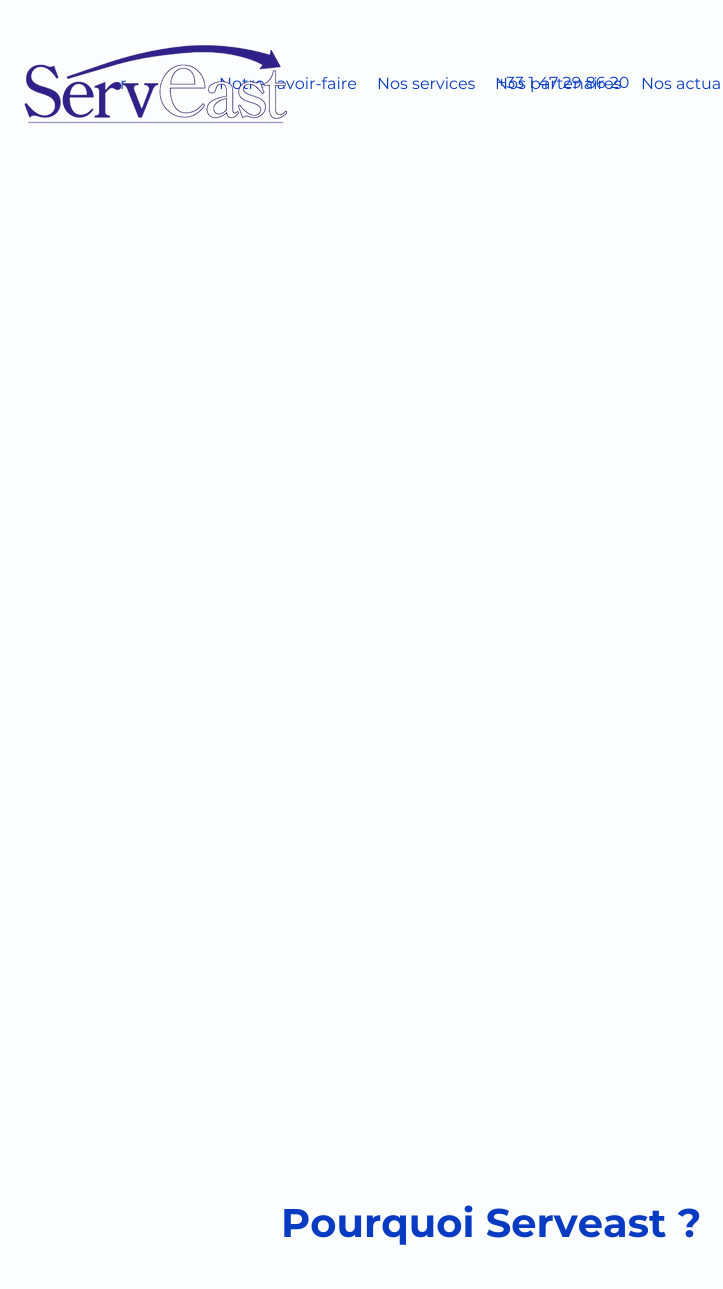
import math
import cairo


def paste(ctx, path, x, y, w, h):
	ctx.save()
	ctx.set_source_surface(cairo.ImageSurface.create_from_png(path), x, y)
	ctx.rectangle(x, y, w, h)
	ctx.fill()
	ctx.restore()

def draw(ctx):
	ctx.set_source_rgb(0.988, 0.992, 1)
	ctx.paint()
	ctx.select_font_face('Montserrat')
	ctx.set_font_size(16)
	ctx.set_source_rgb(0.024, 0.231, 0.761)
	ctx.move_to(120, 89)
	ctx.show_text('r')
	ctx.move_to(219, 89)
	ctx.show_text('Notre savoir-faire')
	paste(ctx, 'media/1.png', 24, 45, 263, 79)
	for x, y, s in [
		(495, 89, 'Nos partenaires'),
		(497, 88, '+33 1 47 29 86 20'),
		(377, 89, 'Nos services'),
		(641, 89, 'Nos actua'),
	]:
		ctx.move_to(x, y)
		ctx.show_text(s)
	ctx.select_font_face('Montserrat', cairo.FONT_SLANT_NORMAL, cairo.FONT_WEIGHT_BOLD)
	ctx.set_font_size(40)
	ctx.move_to(281, 1237)
	ctx.show_text('Pourquoi Serveast ?')


surface = cairo.ImageSurface(cairo.FORMAT_RGB24, 723, 1289)
ctx = cairo.Context(surface)
options = cairo.FontOptions()
options.set_hint_metrics(cairo.HINT_METRICS_OFF)
options.set_hint_style(cairo.HINT_STYLE_NONE)
ctx.set_font_options(options)
ctx.set_miter_limit(4)
draw(ctx)
surface.write_to_png('image.png')
